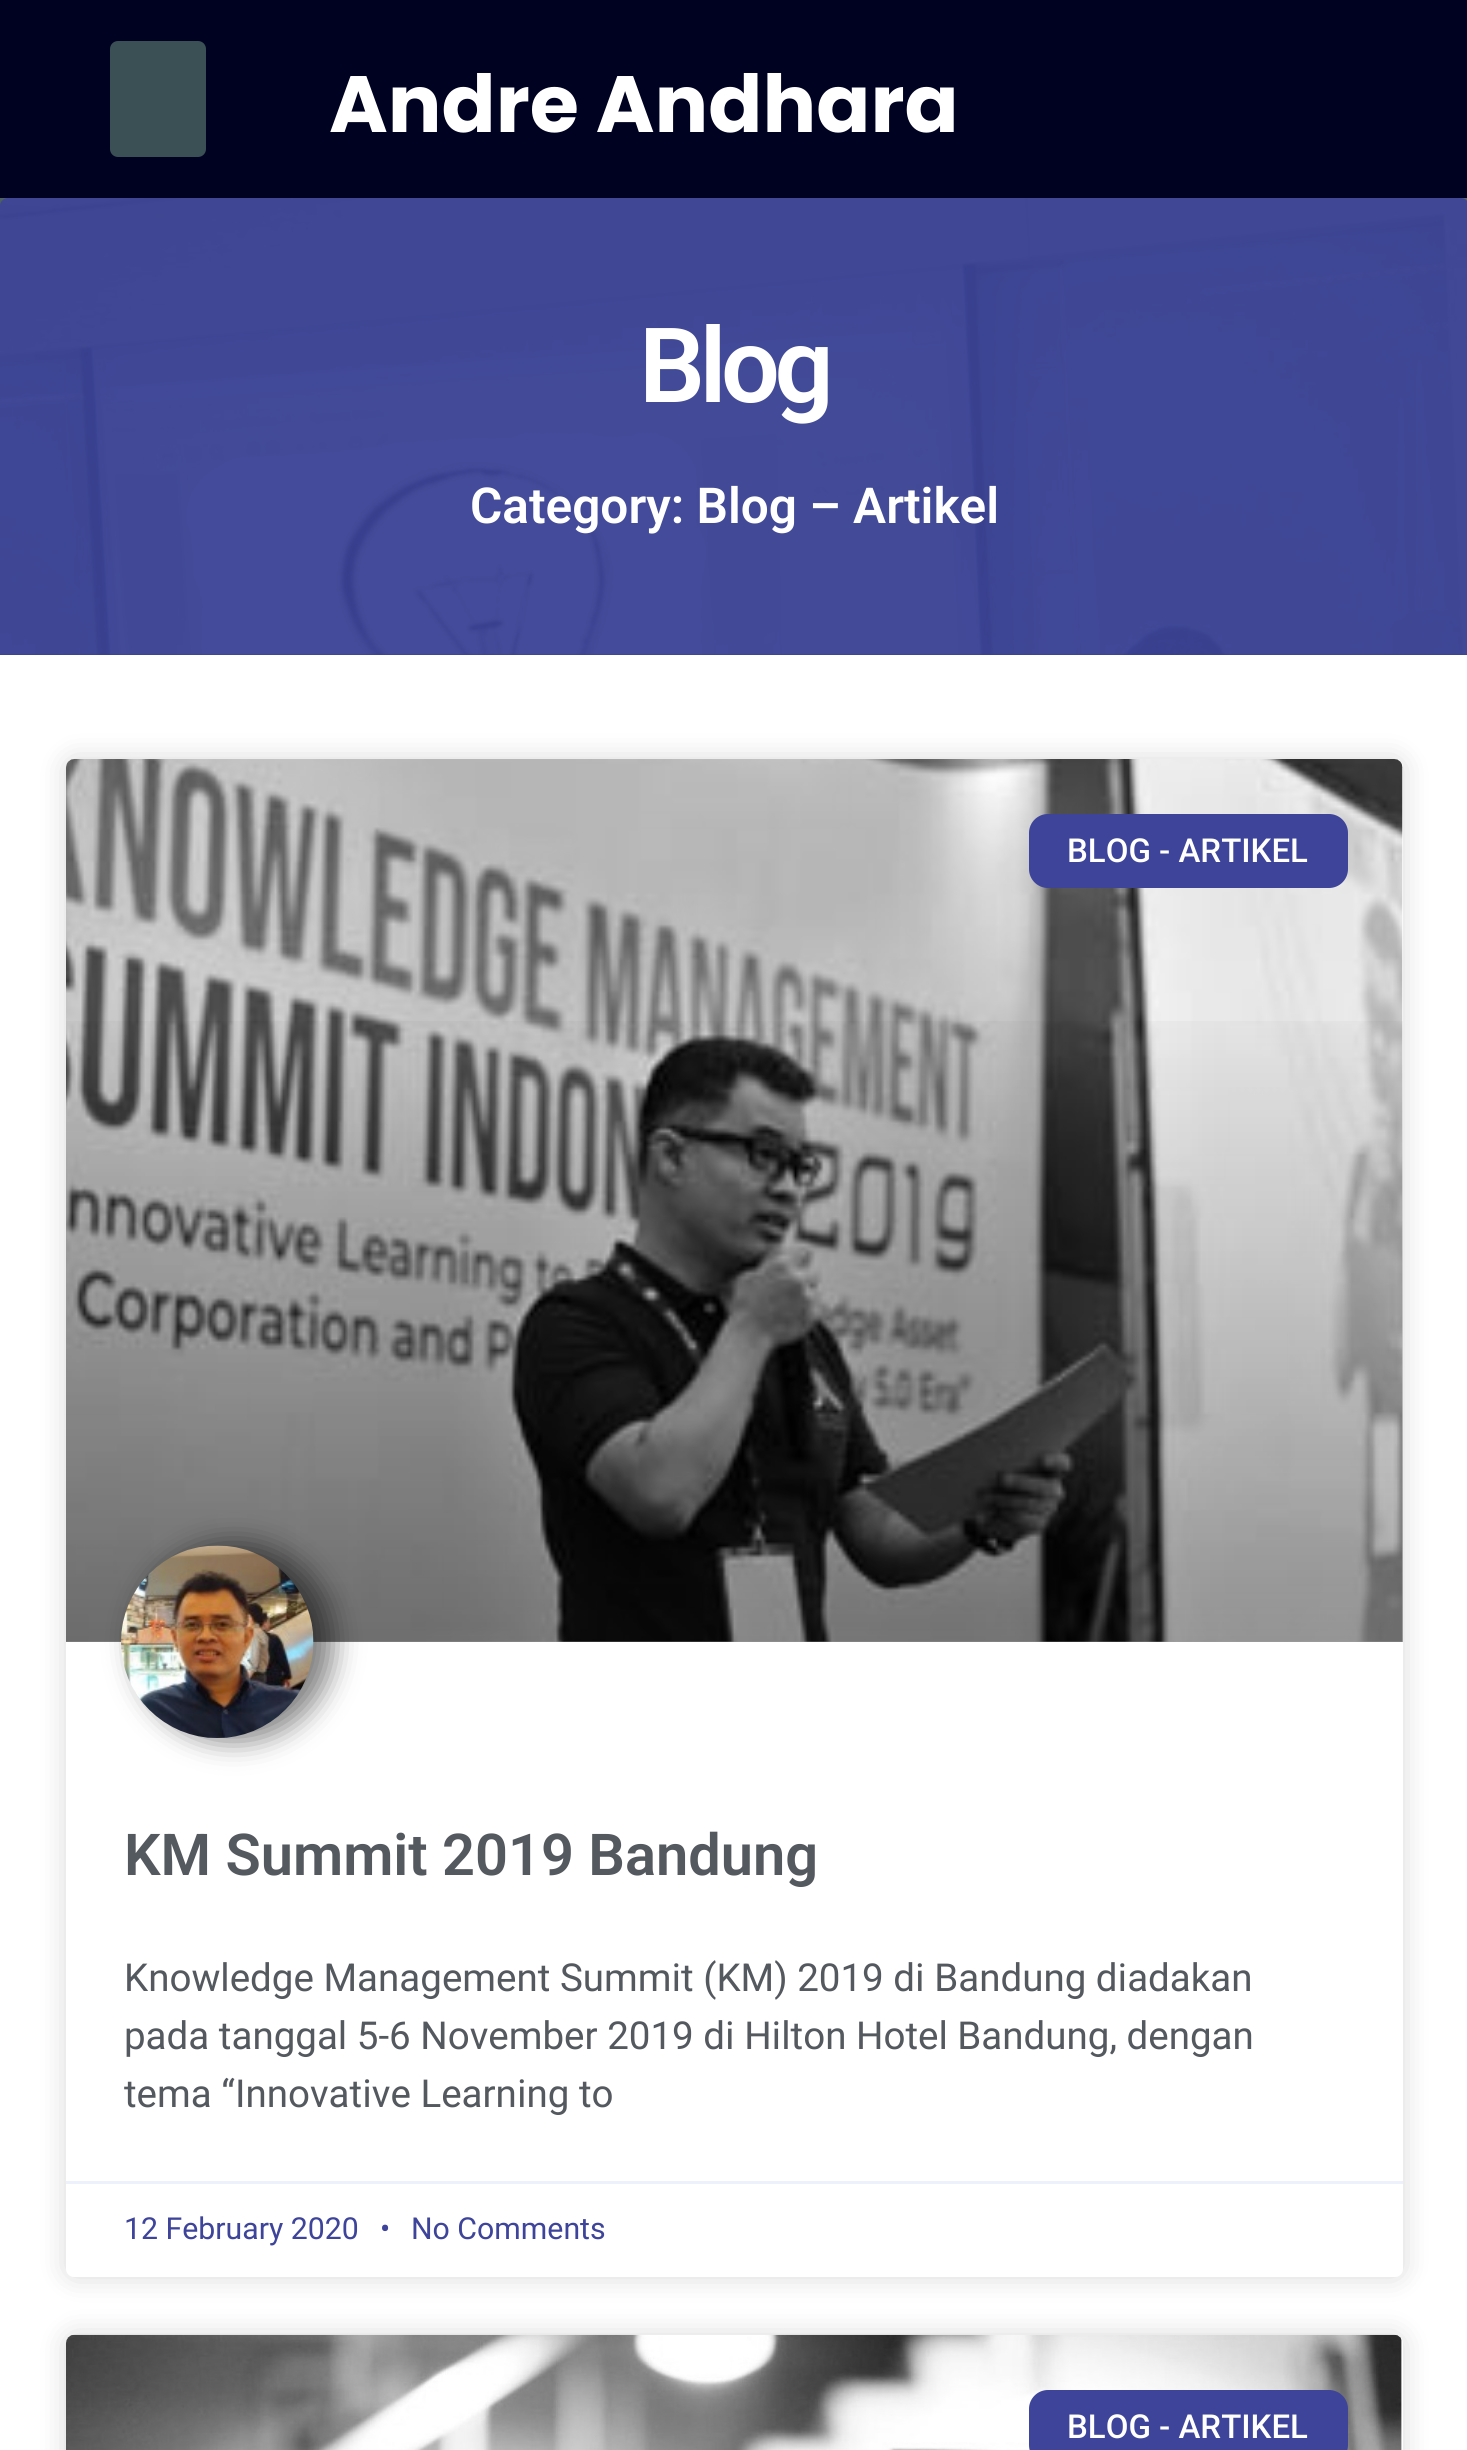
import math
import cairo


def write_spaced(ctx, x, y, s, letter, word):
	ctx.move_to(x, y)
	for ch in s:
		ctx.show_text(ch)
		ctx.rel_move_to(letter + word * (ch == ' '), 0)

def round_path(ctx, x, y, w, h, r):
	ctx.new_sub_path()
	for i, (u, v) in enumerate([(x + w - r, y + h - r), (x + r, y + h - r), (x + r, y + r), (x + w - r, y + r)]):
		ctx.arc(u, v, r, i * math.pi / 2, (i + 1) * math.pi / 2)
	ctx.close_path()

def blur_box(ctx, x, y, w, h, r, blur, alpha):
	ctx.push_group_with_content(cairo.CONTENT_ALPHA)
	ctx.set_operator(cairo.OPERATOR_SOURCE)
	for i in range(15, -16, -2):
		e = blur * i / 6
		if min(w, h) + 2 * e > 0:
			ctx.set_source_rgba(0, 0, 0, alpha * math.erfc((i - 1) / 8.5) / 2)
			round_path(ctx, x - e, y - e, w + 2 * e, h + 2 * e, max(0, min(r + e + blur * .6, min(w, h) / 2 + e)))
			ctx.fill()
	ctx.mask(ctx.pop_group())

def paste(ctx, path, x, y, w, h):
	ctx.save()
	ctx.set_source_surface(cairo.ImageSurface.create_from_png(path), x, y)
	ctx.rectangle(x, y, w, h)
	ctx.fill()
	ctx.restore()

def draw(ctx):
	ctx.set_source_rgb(1, 1, 1)
	ctx.paint()
	ctx.set_source_rgb(0, 0.008, 0.129)
	ctx.rectangle(0, 0, 1467, 198)
	ctx.fill()
	ctx.set_source_rgb(0.231, 0.314, 0.333)
	round_path(ctx, 110, 41, 96, 116, 8)
	ctx.fill()
	ctx.select_font_face('Poppins', cairo.FONT_SLANT_NORMAL, cairo.FONT_WEIGHT_BOLD)
	ctx.set_font_size(79.75)
	ctx.set_source_rgb(1, 1, 1)
	ctx.move_to(329, 132)
	ctx.show_text('Andre Andhara')
	ctx.set_source_rgb(0.02, 0.149, 0.184)
	ctx.rectangle(0, 198, 1467, 457)
	ctx.fill()
	paste(ctx, 'media/1.png', 0, 198, 1467, 457)
	ctx.set_source_rgba(0.239, 0.267, 0.604, 0.9)
	ctx.new_path()
	ctx.move_to(8, 198)
	ctx.line_to(1461, 198)
	ctx.curve_to(1465.5, 198, 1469, 201.5, 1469, 206)
	ctx.line_to(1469, 655)
	ctx.line_to(0, 655)
	ctx.line_to(0, 206)
	ctx.curve_to(0, 201.5, 3.5, 198, 8, 198)
	ctx.close_path()
	ctx.fill()
	ctx.select_font_face('Roboto SemiBold')
	ctx.set_font_size(104)
	ctx.set_source_rgb(1, 1, 1)
	write_spaced(ctx, 639, 402, 'Blog', -5.5, 0)
	ctx.set_font_size(49.5)
	ctx.move_to(470, 523)
	ctx.show_text('Category: Blog – Artikel')
	ctx.set_source_rgb(0, 0, 0)
	blur_box(ctx, 66, 759, 1337, 1518, 8, 14, 0.15)
	ctx.set_source_rgb(1, 1, 1)
	round_path(ctx, 66, 759, 1337, 1518, 8)
	ctx.fill()
	paste(ctx, 'media/2.png', 66, 759, 1337, 883)
	gradient = cairo.LinearGradient(734, 1642, 734, 759)
	gradient.add_color_stop_rgba(0, 0, 0, 0, 0.35)
	gradient.add_color_stop_rgba(0.75, 0, 0, 0, 0)
	ctx.set_source(gradient)
	ctx.rectangle(66, 1021, 1337, 621)
	ctx.fill()
	ctx.set_source_rgb(0.239, 0.267, 0.604)
	round_path(ctx, 1029, 814, 319, 74, 19)
	ctx.fill()
	ctx.select_font_face('Roboto Medium')
	ctx.set_font_size(33)
	ctx.set_source_rgb(1, 1, 1)
	ctx.move_to(1067, 862)
	ctx.show_text('BLOG - ARTIKEL')
	ctx.set_source_rgb(0, 0, 0)
	blur_box(ctx, 135, 1543, 198, 198, 99, 14, 0.5)
	paste(ctx, 'media/3.png', 121, 1545, 193, 193)
	ctx.select_font_face('Roboto SemiBold')
	ctx.set_font_size(57.75)
	ctx.set_source_rgb(0.329, 0.349, 0.373)
	ctx.move_to(124, 1875)
	ctx.show_text('KM Summit 2019 Bandung')
	ctx.select_font_face('Heebo')
	ctx.set_font_size(38.5)
	for x, y, s in [
		(124, 1991, 'Knowledge Management Summit (KM) 2019 di Bandung diadakan'),
		(124, 2049, 'pada tanggal 5-6 November 2019 di Hilton Hotel Bandung, dengan'),
		(124, 2107, 'tema “Innovative Learning to'),
	]:
		ctx.move_to(x, y)
		ctx.show_text(s)
	ctx.set_source_rgb(0.929, 0.945, 0.988)
	ctx.rectangle(66, 2181, 1337, 3)
	ctx.fill()
	ctx.set_font_size(30.25)
	ctx.set_source_rgb(0.239, 0.267, 0.604)
	for x, y, s in [
		(124, 2239, '12 February 2020'),
		(380, 2239, '•'),
		(411, 2239, 'No Comments'),
	]:
		ctx.move_to(x, y)
		ctx.show_text(s)
	ctx.set_source_rgb(0, 0, 0)
	blur_box(ctx, 66, 2335, 1337, 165, 8, 14, 0.15)
	ctx.set_source_rgb(1, 1, 1)
	round_path(ctx, 66, 2335, 1337, 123, 8)
	ctx.fill()
	paste(ctx, 'media/4.png', 66, 2334, 1336, 116)
	ctx.set_source_rgb(0.239, 0.267, 0.604)
	round_path(ctx, 1029, 2390, 319, 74, 19)
	ctx.fill()
	ctx.select_font_face('Roboto Medium')
	ctx.set_font_size(33)
	ctx.set_source_rgb(1, 1, 1)
	ctx.move_to(1067, 2438)
	ctx.show_text('BLOG - ARTIKEL')


surface = cairo.ImageSurface(cairo.FORMAT_RGB24, 1467, 2450)
ctx = cairo.Context(surface)
options = cairo.FontOptions()
options.set_hint_metrics(cairo.HINT_METRICS_OFF)
options.set_hint_style(cairo.HINT_STYLE_NONE)
ctx.set_font_options(options)
ctx.set_miter_limit(4)
draw(ctx)
surface.write_to_png('image.png')
